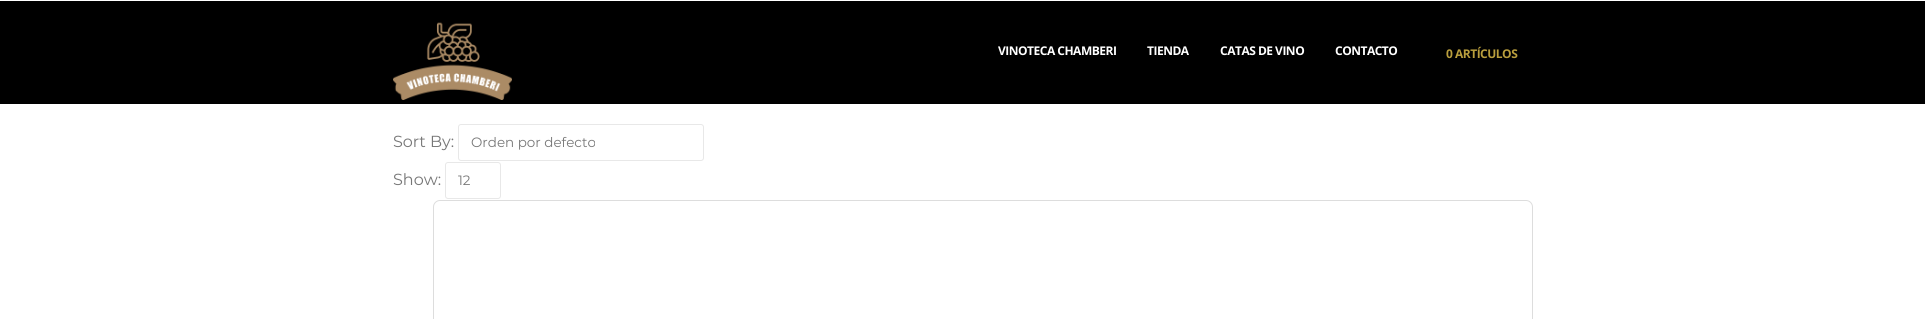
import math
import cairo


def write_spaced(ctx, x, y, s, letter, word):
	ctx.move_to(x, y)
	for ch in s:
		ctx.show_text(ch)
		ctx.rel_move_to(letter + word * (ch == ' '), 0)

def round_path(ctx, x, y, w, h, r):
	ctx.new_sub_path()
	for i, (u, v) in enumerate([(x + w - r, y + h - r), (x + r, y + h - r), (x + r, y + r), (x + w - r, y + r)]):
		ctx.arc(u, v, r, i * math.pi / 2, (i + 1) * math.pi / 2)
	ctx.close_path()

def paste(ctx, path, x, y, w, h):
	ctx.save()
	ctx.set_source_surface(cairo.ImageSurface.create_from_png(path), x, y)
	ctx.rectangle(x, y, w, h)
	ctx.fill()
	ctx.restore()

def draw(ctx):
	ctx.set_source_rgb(1, 1, 1)
	ctx.paint()
	ctx.set_source_rgb(0, 0, 0)
	ctx.rectangle(0, 1, 1925, 103)
	ctx.fill()
	paste(ctx, 'media/1.png', 393, 22, 119, 78)
	ctx.select_font_face('Open Sans', cairo.FONT_SLANT_NORMAL, cairo.FONT_WEIGHT_BOLD)
	ctx.set_font_size(12)
	ctx.set_source_rgb(1, 1, 1)
	for x, y, s in [
		(998, 55, 'VINOTECA CHAMBERI'),
		(1147, 55, 'TIENDA'),
		(1220, 55, 'CATAS DE VINO'),
		(1335, 55, 'CONTACTO'),
	]:
		write_spaced(ctx, x, y, s, -0.5, 0)
	ctx.set_source_rgb(0.725, 0.62, 0.239)
	write_spaced(ctx, 1446, 58, '0 ARTÍCULOS', -0.5, 0)
	ctx.select_font_face('Montserrat')
	ctx.set_font_size(16)
	ctx.set_source_rgb(0.467, 0.467, 0.467)
	ctx.move_to(393, 147)
	ctx.show_text('Sort By:')
	round_path(ctx, 458.5, 124.5, 245, 36, 2.5)
	ctx.set_source_rgb(0.91, 0.91, 0.91)
	ctx.set_line_width(1)
	ctx.stroke()
	ctx.set_font_size(13.5)
	ctx.set_source_rgb(0.467, 0.467, 0.467)
	ctx.move_to(471, 147)
	ctx.show_text('Orden por defecto')
	ctx.set_font_size(16)
	ctx.move_to(393, 185)
	ctx.show_text('Show:')
	round_path(ctx, 445.5, 162.5, 55, 36, 2.5)
	ctx.set_source_rgb(0.91, 0.91, 0.91)
	ctx.stroke()
	ctx.set_font_size(13.5)
	ctx.set_source_rgb(0.467, 0.467, 0.467)
	ctx.move_to(458, 185)
	ctx.show_text('12')
	round_path(ctx, 433.5, 200.5, 1099, 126, 6.5)
	ctx.set_source_rgb(0.867, 0.867, 0.867)
	ctx.stroke()


surface = cairo.ImageSurface(cairo.FORMAT_RGB24, 1925, 319)
ctx = cairo.Context(surface)
options = cairo.FontOptions()
options.set_hint_metrics(cairo.HINT_METRICS_OFF)
options.set_hint_style(cairo.HINT_STYLE_NONE)
ctx.set_font_options(options)
ctx.set_miter_limit(4)
draw(ctx)
surface.write_to_png('image.png')
